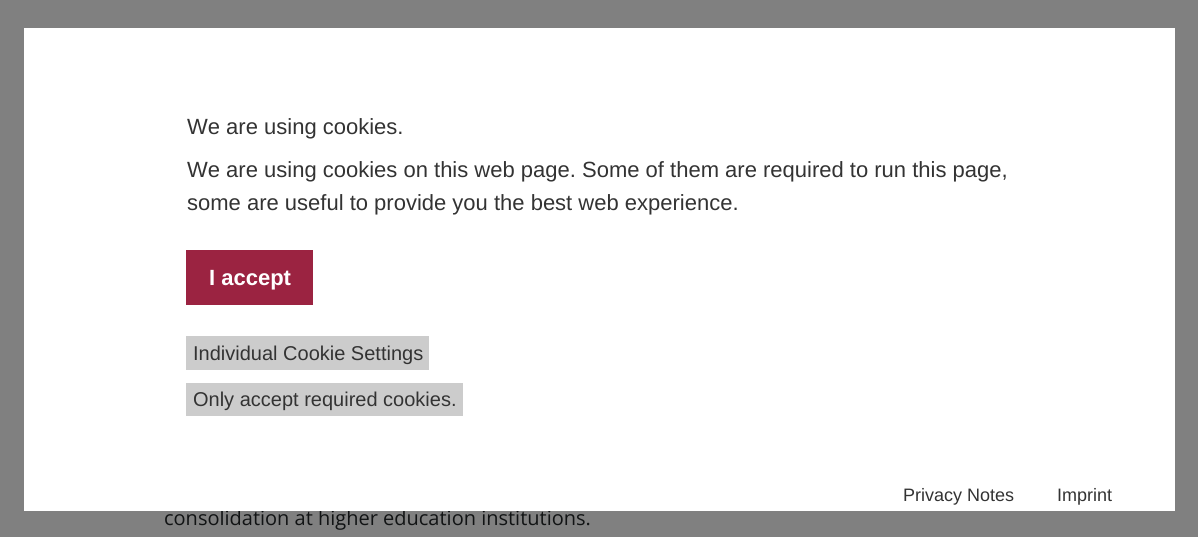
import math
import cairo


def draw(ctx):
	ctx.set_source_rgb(0.502, 0.502, 0.502)
	ctx.paint()
	ctx.select_font_face('Open Sans')
	ctx.set_font_size(20)
	ctx.set_source_rgb(0.067, 0.075, 0.082)
	ctx.move_to(164, 525)
	ctx.show_text('consolidation at higher education institutions.')
	ctx.set_source_rgb(1, 1, 1)
	ctx.rectangle(24, 28, 1151, 483)
	ctx.fill()
	ctx.select_font_face('Liberation Sans')
	ctx.set_font_size(22)
	ctx.set_source_rgb(0.2, 0.2, 0.2)
	for x, y, s in [
		(187, 134, 'We are using cookies.'),
		(187, 177, 'We are using cookies on this web page. Some of them are required to run this page,'),
		(187, 210, 'some are useful to provide you the best web experience.'),
	]:
		ctx.move_to(x, y)
		ctx.show_text(s)
	ctx.set_source_rgb(0.608, 0.137, 0.255)
	ctx.rectangle(186, 250, 127, 55)
	ctx.fill()
	ctx.select_font_face('Liberation Sans', cairo.FONT_SLANT_NORMAL, cairo.FONT_WEIGHT_BOLD)
	ctx.set_source_rgb(1, 1, 1)
	ctx.move_to(209, 285)
	ctx.show_text('I accept')
	ctx.set_source_rgb(0.8, 0.8, 0.8)
	ctx.rectangle(186, 336, 243, 34)
	ctx.fill()
	ctx.select_font_face('Liberation Sans')
	ctx.set_font_size(20)
	ctx.set_source_rgb(0.2, 0.2, 0.2)
	ctx.move_to(193, 360)
	ctx.show_text('Individual Cookie Settings')
	ctx.set_source_rgb(0.8, 0.8, 0.8)
	ctx.rectangle(186, 383, 277, 33)
	ctx.fill()
	ctx.set_source_rgb(0.2, 0.2, 0.2)
	ctx.move_to(193, 406)
	ctx.show_text('Only accept required cookies.')
	ctx.set_font_size(18)
	ctx.move_to(903, 501)
	ctx.show_text('Privacy Notes')
	ctx.move_to(1057, 501)
	ctx.show_text('Imprint')


surface = cairo.ImageSurface(cairo.FORMAT_RGB24, 1198, 537)
ctx = cairo.Context(surface)
options = cairo.FontOptions()
options.set_hint_metrics(cairo.HINT_METRICS_OFF)
options.set_hint_style(cairo.HINT_STYLE_NONE)
ctx.set_font_options(options)
ctx.set_miter_limit(4)
draw(ctx)
surface.write_to_png('image.png')
